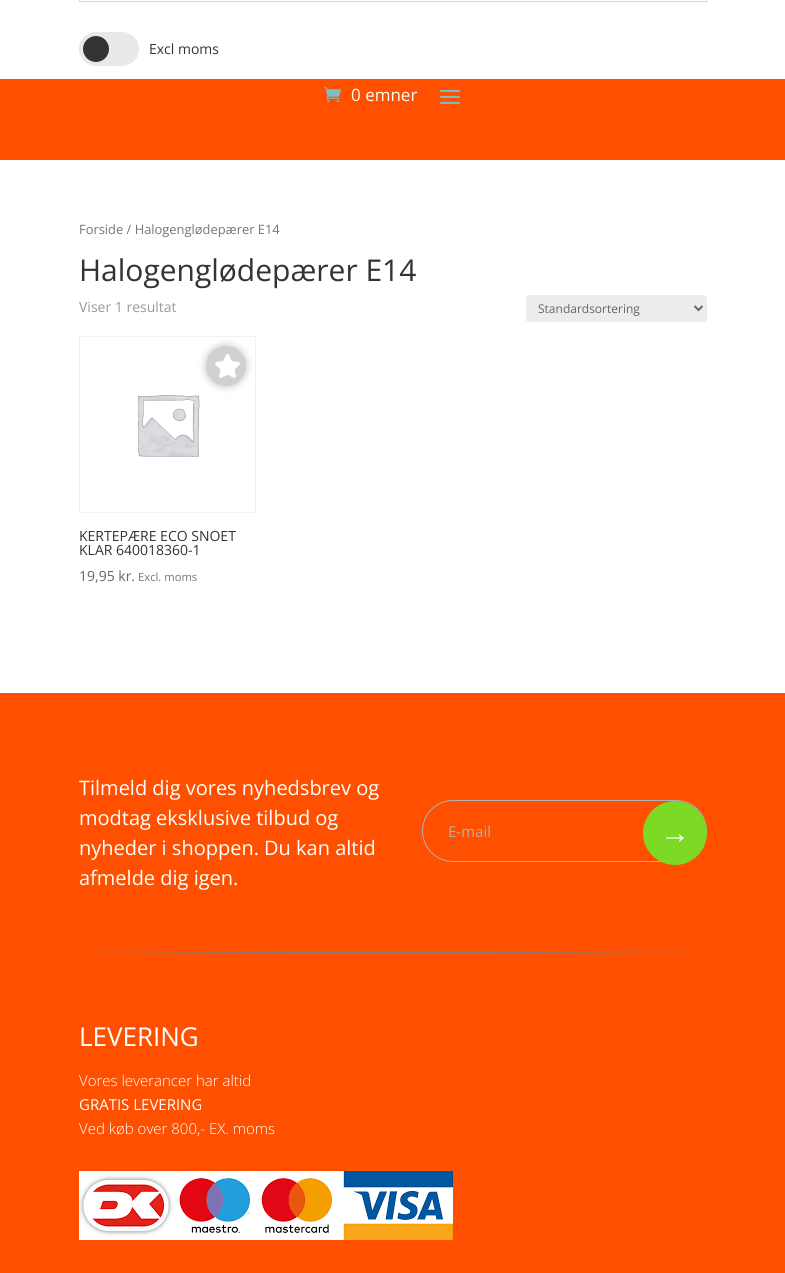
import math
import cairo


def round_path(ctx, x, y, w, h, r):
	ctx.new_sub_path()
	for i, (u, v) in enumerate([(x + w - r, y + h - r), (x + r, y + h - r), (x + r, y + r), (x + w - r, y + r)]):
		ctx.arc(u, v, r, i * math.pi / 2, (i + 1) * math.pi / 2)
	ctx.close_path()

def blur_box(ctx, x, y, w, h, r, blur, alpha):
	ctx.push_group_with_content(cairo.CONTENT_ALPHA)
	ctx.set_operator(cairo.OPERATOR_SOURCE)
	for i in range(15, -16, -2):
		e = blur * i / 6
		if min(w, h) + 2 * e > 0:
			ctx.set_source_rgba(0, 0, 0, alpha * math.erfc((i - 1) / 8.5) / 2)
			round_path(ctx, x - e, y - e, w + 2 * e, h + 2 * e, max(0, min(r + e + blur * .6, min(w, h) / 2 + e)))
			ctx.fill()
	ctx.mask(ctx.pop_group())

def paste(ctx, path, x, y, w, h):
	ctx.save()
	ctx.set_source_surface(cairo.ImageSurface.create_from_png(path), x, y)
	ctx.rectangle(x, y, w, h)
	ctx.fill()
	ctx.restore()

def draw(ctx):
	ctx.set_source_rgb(1, 1, 1)
	ctx.paint()
	ctx.rectangle(79.5, -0.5, 627, 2)
	ctx.set_source_rgb(0.847, 0.847, 0.847)
	ctx.set_line_width(1)
	ctx.stroke()
	ctx.set_source_rgb(0.914, 0.914, 0.918)
	round_path(ctx, 79, 32, 60, 34, 17)
	ctx.fill()
	ctx.set_source_rgb(0.2, 0.2, 0.2)
	ctx.arc(96, 49, 13, 0, 2 * math.pi)
	ctx.fill()
	ctx.select_font_face('Open Sans')
	ctx.set_font_size(14)
	ctx.move_to(149, 54)
	ctx.show_text('Excl moms')
	ctx.set_source_rgb(0.996, 0.314, 0)
	ctx.rectangle(0, 79, 785, 81)
	ctx.fill()
	paste(ctx, 'media/1.png', 324, 87, 17, 15)
	ctx.set_font_size(17)
	ctx.set_source_rgb(1, 1, 1)
	ctx.move_to(351, 101)
	ctx.show_text('0 emner')
	paste(ctx, 'media/2.png', 440, 89, 20, 15)
	ctx.set_font_size(12.9)
	ctx.set_source_rgb(0.463, 0.463, 0.463)
	ctx.move_to(79, 234)
	ctx.show_text('Forside / Halogenglødepærer E14')
	ctx.set_font_size(30)
	ctx.set_source_rgb(0.2, 0.2, 0.2)
	ctx.move_to(79, 281)
	ctx.show_text('Halogenglødepærer E14')
	ctx.set_font_size(14)
	ctx.set_source_rgb(0.6, 0.6, 0.6)
	ctx.move_to(79, 312)
	ctx.show_text('Viser 1 resultat')
	ctx.set_source_rgb(0.925, 0.925, 0.925)
	round_path(ctx, 526, 295, 181, 27, 3)
	ctx.fill()
	ctx.new_path()
	ctx.move_to(694.5, 306)
	ctx.line_to(698.5, 310)
	ctx.line_to(702.5, 306)
	ctx.set_source_rgb(0.4, 0.4, 0.4)
	ctx.set_line_width(2)
	ctx.stroke()
	ctx.set_font_size(12)
	ctx.move_to(538, 313)
	ctx.show_text('Standardsortering')
	ctx.rectangle(79.5, 336.5, 176, 176)
	ctx.set_source_rgb(0.949, 0.949, 0.949)
	ctx.set_line_width(1)
	ctx.stroke()
	paste(ctx, 'media/4.png', 137, 395, 63, 62)
	ctx.set_source_rgb(0, 0, 0)
	blur_box(ctx, 206, 346, 40, 40, 20, 4, 0.25)
	ctx.set_source_rgb(0.82, 0.82, 0.82)
	ctx.arc(226, 366, 20, 0, 2 * math.pi)
	ctx.fill()
	paste(ctx, 'media/3.png', 215, 354, 25, 24)
	ctx.set_font_size(14)
	ctx.set_source_rgb(0.2, 0.2, 0.2)
	ctx.move_to(79, 541)
	ctx.show_text('KERTEPÆRE ECO SNOET')
	ctx.move_to(79, 555)
	ctx.show_text('KLAR 640018360-1')
	ctx.set_source_rgb(0.4, 0.4, 0.4)
	ctx.move_to(79, 581)
	ctx.show_text('19,95 kr.')
	ctx.set_font_size(11.25)
	ctx.set_source_rgb(0.463, 0.463, 0.463)
	ctx.move_to(138, 581)
	ctx.show_text('Excl. moms')
	ctx.set_source_rgb(0.996, 0.314, 0)
	ctx.rectangle(0, 693, 785, 580)
	ctx.fill()
	ctx.set_font_size(20)
	ctx.set_source_rgb(1, 1, 1)
	for x, y, s in [
		(79, 795, 'Tilmeld dig vores nyhedsbrev og'),
		(79, 825, 'modtag eksklusive tilbud og'),
		(79, 855, 'nyheder i shoppen. Du kan altid'),
		(79, 885, 'afmelde dig igen.'),
	]:
		ctx.move_to(x, y)
		ctx.show_text(s)
	round_path(ctx, 422.5, 800.5, 284, 61, 30.5)
	ctx.set_source_rgb(0.694, 0.694, 0.694)
	ctx.stroke()
	ctx.set_font_size(15)
	ctx.move_to(448, 837)
	ctx.show_text('E-mail')
	ctx.set_source_rgb(0.486, 0.855, 0.141)
	ctx.new_path()
	ctx.arc(675, 833, 32, 0, 2 * math.pi)
	ctx.fill()
	ctx.select_font_face('Liberation Sans')
	ctx.set_font_size(30)
	ctx.set_source_rgb(1, 1, 1)
	ctx.move_to(660, 843)
	ctx.show_text('→')
	gradient = cairo.LinearGradient(79, 953, 707, 953)
	gradient.add_color_stop_rgba(0, 0.996, 0.314, 0, 1)
	gradient.add_color_stop_rgba(0.33, 0.506, 0.498, 0.498, 1)
	gradient.add_color_stop_rgba(0.66, 0.506, 0.498, 0.498, 1)
	gradient.add_color_stop_rgba(0.99, 0.996, 0.314, 0, 1)
	ctx.set_source(gradient)
	ctx.rectangle(79, 952, 618, 1)
	ctx.fill()
	ctx.select_font_face('Open Sans')
	ctx.set_font_size(26)
	ctx.set_source_rgb(1, 1, 1)
	ctx.move_to(79, 1046)
	ctx.show_text('LEVERING')
	ctx.select_font_face('Open Sans Light')
	ctx.set_font_size(15)
	ctx.move_to(79, 1086)
	ctx.show_text('Vores leverancer har altid')
	ctx.select_font_face('Open Sans')
	ctx.move_to(79, 1110)
	ctx.show_text('GRATIS LEVERING')
	ctx.select_font_face('Open Sans Light')
	ctx.move_to(79, 1134)
	ctx.show_text('Ved køb over 800,- EX. moms')
	paste(ctx, 'media/5.png', 79, 1171, 374, 69)


surface = cairo.ImageSurface(cairo.FORMAT_RGB24, 785, 1273)
ctx = cairo.Context(surface)
options = cairo.FontOptions()
options.set_hint_metrics(cairo.HINT_METRICS_OFF)
options.set_hint_style(cairo.HINT_STYLE_NONE)
ctx.set_font_options(options)
ctx.set_miter_limit(4)
draw(ctx)
surface.write_to_png('image.png')
